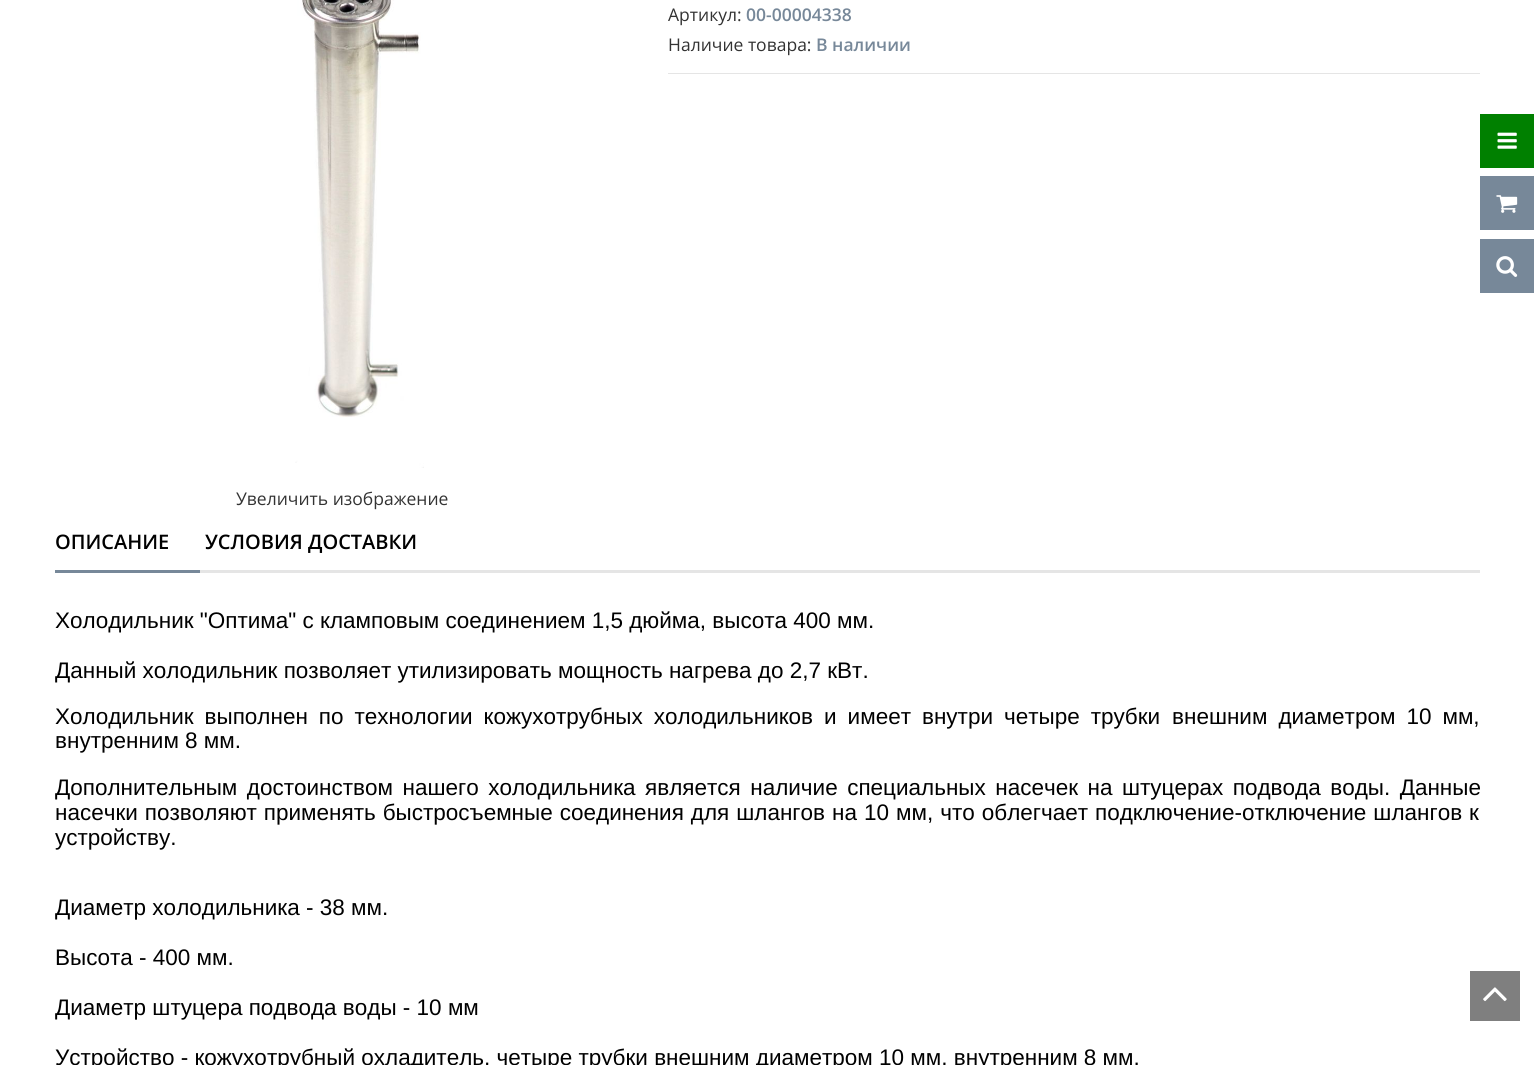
import math
import cairo


def write_spaced(ctx, x, y, s, letter, word):
	ctx.move_to(x, y)
	for ch in s:
		ctx.show_text(ch)
		ctx.rel_move_to(letter + word * (ch == ' '), 0)

def paste(ctx, path, x, y, w, h):
	ctx.save()
	ctx.set_source_surface(cairo.ImageSurface.create_from_png(path), x, y)
	ctx.rectangle(x, y, w, h)
	ctx.fill()
	ctx.restore()

def draw(ctx):
	ctx.set_source_rgb(1, 1, 1)
	ctx.paint()
	ctx.select_font_face('Open Sans')
	ctx.set_font_size(17.5)
	ctx.set_source_rgb(0.2, 0.2, 0.2)
	ctx.move_to(668, 21)
	ctx.show_text('Артикул:')
	ctx.select_font_face('Open Sans SemiBold')
	ctx.set_source_rgb(0.467, 0.533, 0.6)
	ctx.move_to(746, 21)
	ctx.show_text('00-00004338')
	ctx.select_font_face('Open Sans')
	ctx.set_source_rgb(0.2, 0.2, 0.2)
	ctx.move_to(668, 51)
	ctx.show_text('Наличие товара:')
	ctx.select_font_face('Open Sans SemiBold')
	ctx.set_source_rgb(0.467, 0.533, 0.6)
	ctx.move_to(816, 51)
	ctx.show_text('В наличии')
	ctx.set_source_rgb(0.898, 0.898, 0.898)
	ctx.rectangle(668, 73, 812, 1)
	ctx.fill()
	paste(ctx, 'media/1.png', 295, 0, 129, 468)
	ctx.select_font_face('Open Sans')
	ctx.set_source_rgb(0.2, 0.2, 0.2)
	ctx.move_to(236, 505)
	ctx.show_text('Увеличить изображение')
	ctx.select_font_face('Open Sans SemiBold')
	ctx.set_font_size(20)
	ctx.set_source_rgb(0, 0, 0)
	ctx.move_to(55, 549)
	ctx.show_text('ОПИСАНИЕ')
	ctx.set_source_rgb(0.467, 0.533, 0.6)
	ctx.rectangle(55, 570, 145, 3)
	ctx.fill()
	ctx.set_source_rgb(0, 0, 0)
	ctx.move_to(205, 549)
	ctx.show_text('УСЛОВИЯ ДОСТАВКИ')
	ctx.set_source_rgb(0.898, 0.898, 0.898)
	ctx.rectangle(200, 570, 1280, 3)
	ctx.fill()
	ctx.select_font_face('Liberation Sans')
	ctx.set_font_size(22.5)
	ctx.set_source_rgb(0, 0, 0)
	ctx.move_to(55, 628)
	ctx.show_text('Холодильник "Оптима" с кламповым соединением 1,5 дюйма, высота 400 мм.')
	ctx.move_to(55, 678)
	ctx.show_text('Данный холодильник позволяет утилизировать мощность нагрева до 2,7 кВт.')
	write_spaced(ctx, 55, 724, 'Холодильник выполнен по технологии кожухотрубных холодильников и имеет внутри четыре трубки', 0, 4.75)
	write_spaced(ctx, 1172, 724, 'внешним диаметром 10 мм,', 0, 4.75)
	ctx.move_to(55, 748)
	ctx.show_text('внутренним 8 мм.')
	write_spaced(ctx, 55, 795, 'Дополнительным достоинством нашего холодильника является наличие специальных насечек на штуцерах подвода воды. Данные', 0, 3.25)
	write_spaced(ctx, 55, 820, 'насечки позволяют применять быстросъемные соединения для шлангов на 10 мм, что облегчает подключение-отключение шлангов к', 0, 0.75)
	for x, y, s in [
		(55, 845, 'устройству.'),
		(55, 915, 'Диаметр холодильника - 38 мм.'),
		(55, 965, 'Высота - 400 мм.'),
		(55, 1015, 'Диаметр штуцера подвода воды - 10 мм'),
		(55, 1065, 'Устройство - кожухотрубный охладитель, четыре трубки внешним диаметром 10 мм, внутренним 8 мм.'),
	]:
		ctx.move_to(x, y)
		ctx.show_text(s)
	ctx.set_source_rgb(0, 0.502, 0)
	ctx.rectangle(1480, 114, 54, 54)
	ctx.fill()
	paste(ctx, 'media/2.png', 1497, 132, 20, 17)
	ctx.set_source_rgb(0.467, 0.533, 0.6)
	ctx.rectangle(1480, 176, 54, 54)
	ctx.fill()
	paste(ctx, 'media/3.png', 1496, 195, 22, 18)
	ctx.rectangle(1480, 239, 54, 54)
	ctx.fill()
	paste(ctx, 'media/4.png', 1496, 256, 22, 21)
	ctx.set_source_rgb(0.498, 0.498, 0.498)
	ctx.rectangle(1470, 971, 50, 50)
	ctx.fill()
	paste(ctx, 'media/5.png', 1483, 987, 24, 15)


surface = cairo.ImageSurface(cairo.FORMAT_RGB24, 1535, 1065)
ctx = cairo.Context(surface)
options = cairo.FontOptions()
options.set_hint_metrics(cairo.HINT_METRICS_OFF)
options.set_hint_style(cairo.HINT_STYLE_NONE)
ctx.set_font_options(options)
ctx.set_miter_limit(4)
draw(ctx)
surface.write_to_png('image.png')
